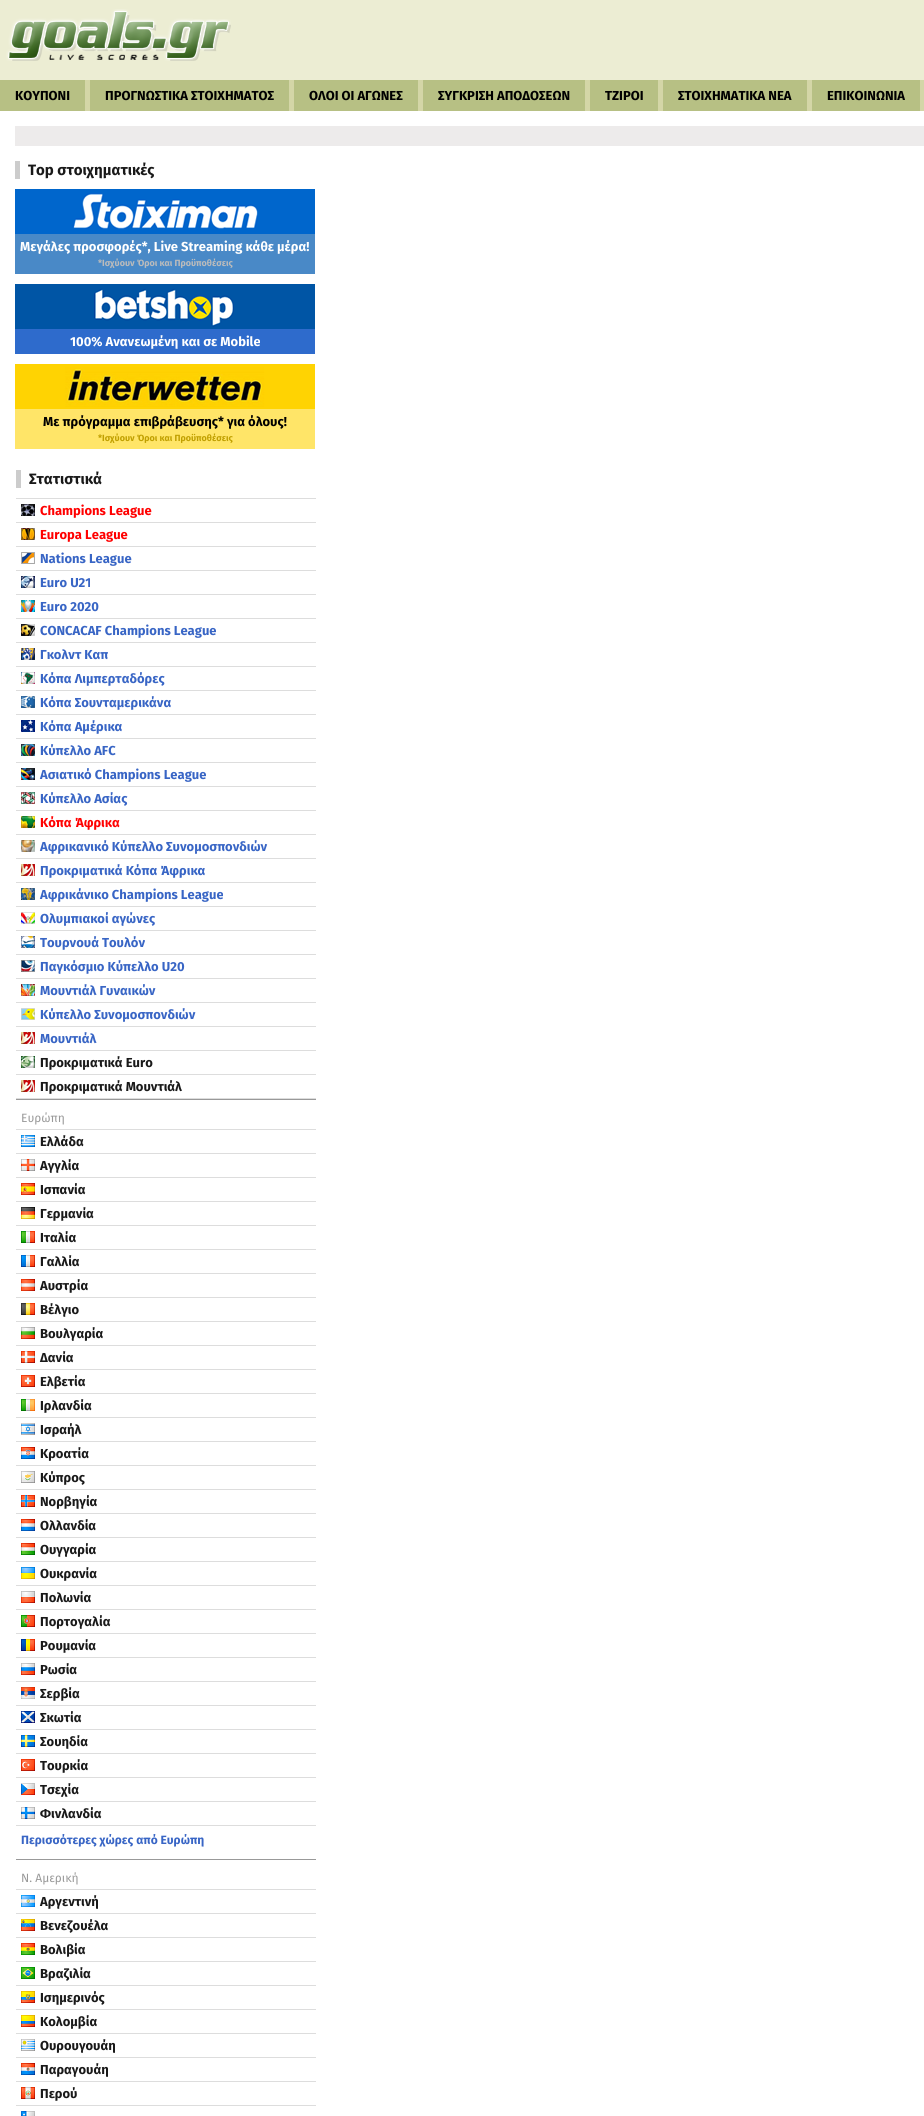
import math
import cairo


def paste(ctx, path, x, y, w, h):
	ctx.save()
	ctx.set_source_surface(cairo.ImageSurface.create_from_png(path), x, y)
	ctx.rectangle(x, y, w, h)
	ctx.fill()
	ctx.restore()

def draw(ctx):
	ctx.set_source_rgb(0.922, 0.929, 0.827)
	ctx.paint()
	paste(ctx, 'media/1.png', 6, 9, 225, 52)
	ctx.set_source_rgb(0.831, 0.839, 0.655)
	ctx.rectangle(85, 80, 839, 31)
	ctx.fill()
	ctx.set_source_rgb(0.718, 0.753, 0.518)
	ctx.rectangle(0, 80, 85, 31)
	ctx.fill()
	ctx.select_font_face('Fira Sans', cairo.FONT_SLANT_NORMAL, cairo.FONT_WEIGHT_BOLD)
	ctx.set_font_size(13)
	ctx.set_source_rgb(0, 0, 0)
	ctx.move_to(15, 100)
	ctx.show_text('ΚΟΥΠΟΝΙ')
	ctx.set_source_rgb(0.718, 0.753, 0.518)
	ctx.rectangle(90, 80, 199, 31)
	ctx.fill()
	ctx.set_source_rgb(0, 0, 0)
	ctx.move_to(105, 100)
	ctx.show_text('ΠΡΟΓΝΩΣΤΙΚΑ ΣΤΟΙΧΗΜΑΤΟΣ')
	ctx.set_source_rgb(0.718, 0.753, 0.518)
	ctx.rectangle(294, 80, 124, 31)
	ctx.fill()
	ctx.set_source_rgb(0, 0, 0)
	ctx.move_to(309, 100)
	ctx.show_text('ΟΛΟΙ ΟΙ ΑΓΩΝΕΣ')
	ctx.set_source_rgb(0.718, 0.753, 0.518)
	ctx.rectangle(423, 80, 162, 31)
	ctx.fill()
	ctx.set_source_rgb(0, 0, 0)
	ctx.move_to(438, 100)
	ctx.show_text('ΣΥΓΚΡΙΣΗ ΑΠΟΔΟΣΕΩΝ')
	ctx.set_source_rgb(0.718, 0.753, 0.518)
	ctx.rectangle(590, 80, 68, 31)
	ctx.fill()
	ctx.set_source_rgb(0, 0, 0)
	ctx.move_to(605, 100)
	ctx.show_text('ΤΖΙΡΟΙ')
	ctx.set_source_rgb(0.718, 0.753, 0.518)
	ctx.rectangle(663, 80, 144, 31)
	ctx.fill()
	ctx.set_source_rgb(0, 0, 0)
	ctx.move_to(678, 100)
	ctx.show_text('ΣΤΟΙΧΗΜΑΤΙΚΑ ΝΕΑ')
	ctx.set_source_rgb(0.718, 0.753, 0.518)
	ctx.rectangle(812, 80, 108, 31)
	ctx.fill()
	ctx.set_source_rgb(0, 0, 0)
	ctx.move_to(827, 100)
	ctx.show_text('ΕΠΙΚΟΙΝΩΝΙΑ')
	ctx.set_source_rgb(1, 1, 1)
	ctx.rectangle(0, 111, 924, 2005)
	ctx.fill()
	ctx.set_source_rgb(0.929, 0.918, 0.918)
	ctx.rectangle(15, 126, 909, 20)
	ctx.fill()
	ctx.set_source_rgb(0.8, 0.8, 0.8)
	ctx.rectangle(15, 161, 5, 18)
	ctx.fill()
	ctx.set_font_size(15)
	ctx.set_source_rgb(0.098, 0.098, 0.098)
	ctx.move_to(28, 175)
	ctx.show_text('Top στοιχηματικές')
	paste(ctx, 'media/2.png', 15, 189, 300, 45)
	ctx.set_source_rgb(0.286, 0.537, 0.78)
	ctx.rectangle(15, 234, 300, 40)
	ctx.fill()
	ctx.set_font_size(13)
	ctx.set_source_rgb(1, 1, 1)
	ctx.move_to(20, 251)
	ctx.show_text('Μεγάλες προσφορές*, Live Streaming κάθε μέρα!')
	ctx.set_font_size(9)
	ctx.set_source_rgb(0.733, 0.733, 0.733)
	ctx.move_to(98, 266)
	ctx.show_text('*Ισχύουν Όροι και Προϋποθέσεις')
	paste(ctx, 'media/3.png', 15, 284, 300, 45)
	ctx.set_source_rgb(0.18, 0.42, 0.8)
	ctx.rectangle(15, 329, 300, 25)
	ctx.fill()
	ctx.set_font_size(13)
	ctx.set_source_rgb(1, 1, 1)
	ctx.move_to(70, 346)
	ctx.show_text('100% Ανανεωμένη και σε Mobile')
	paste(ctx, 'media/4.png', 15, 364, 300, 45)
	ctx.set_source_rgb(1, 0.898, 0.408)
	ctx.rectangle(15, 409, 300, 40)
	ctx.fill()
	ctx.set_source_rgb(0, 0, 0)
	ctx.move_to(43, 426)
	ctx.show_text('Με πρόγραμμα επιβράβευσης* για όλους!')
	ctx.set_font_size(9)
	ctx.set_source_rgb(0.757, 0.627, 0)
	ctx.move_to(98, 441)
	ctx.show_text('*Ισχύουν Όροι και Προϋποθέσεις')
	ctx.set_source_rgb(0.8, 0.8, 0.8)
	ctx.rectangle(16, 470, 5, 18)
	ctx.fill()
	ctx.set_font_size(15)
	ctx.set_source_rgb(0.098, 0.098, 0.098)
	ctx.move_to(29, 484)
	ctx.show_text('Στατιστικά')
	ctx.set_source_rgb(0.867, 0.867, 0.867)
	ctx.rectangle(16, 498, 300, 1)
	ctx.fill()
	ctx.rectangle(16, 522, 300, 1)
	ctx.fill()
	paste(ctx, 'media/5.png', 21, 504, 14, 12)
	ctx.set_font_size(13)
	ctx.set_source_rgb(1, 0, 0)
	ctx.move_to(40, 515)
	ctx.show_text('Champions League')
	ctx.set_source_rgb(0.867, 0.867, 0.867)
	ctx.rectangle(16, 546, 300, 1)
	ctx.fill()
	paste(ctx, 'media/6.png', 21, 528, 14, 12)
	ctx.set_source_rgb(1, 0, 0)
	ctx.move_to(40, 539)
	ctx.show_text('Europa League')
	ctx.set_source_rgb(0.867, 0.867, 0.867)
	ctx.rectangle(16, 570, 300, 1)
	ctx.fill()
	paste(ctx, 'media/7.png', 21, 552, 14, 12)
	ctx.set_source_rgb(0.22, 0.396, 0.773)
	ctx.move_to(40, 563)
	ctx.show_text('Nations League')
	ctx.set_source_rgb(0.867, 0.867, 0.867)
	ctx.rectangle(16, 594, 300, 1)
	ctx.fill()
	paste(ctx, 'media/8.png', 21, 576, 14, 12)
	ctx.set_source_rgb(0.22, 0.396, 0.773)
	ctx.move_to(40, 587)
	ctx.show_text('Euro U21')
	ctx.set_source_rgb(0.867, 0.867, 0.867)
	ctx.rectangle(16, 618, 300, 1)
	ctx.fill()
	paste(ctx, 'media/9.png', 21, 600, 14, 12)
	ctx.set_source_rgb(0.22, 0.396, 0.773)
	ctx.move_to(40, 611)
	ctx.show_text('Euro 2020')
	ctx.set_source_rgb(0.867, 0.867, 0.867)
	ctx.rectangle(16, 642, 300, 1)
	ctx.fill()
	paste(ctx, 'media/10.png', 21, 624, 14, 12)
	ctx.set_source_rgb(0.22, 0.396, 0.773)
	ctx.move_to(40, 635)
	ctx.show_text('CONCACAF Champions League')
	ctx.set_source_rgb(0.867, 0.867, 0.867)
	ctx.rectangle(16, 666, 300, 1)
	ctx.fill()
	paste(ctx, 'media/11.png', 21, 648, 14, 12)
	ctx.set_source_rgb(0.22, 0.396, 0.773)
	ctx.move_to(40, 659)
	ctx.show_text('Γκολντ Καπ')
	ctx.set_source_rgb(0.867, 0.867, 0.867)
	ctx.rectangle(16, 690, 300, 1)
	ctx.fill()
	paste(ctx, 'media/12.png', 21, 672, 14, 12)
	ctx.set_source_rgb(0.22, 0.396, 0.773)
	ctx.move_to(40, 683)
	ctx.show_text('Κόπα Λιμπερταδόρες')
	ctx.set_source_rgb(0.867, 0.867, 0.867)
	ctx.rectangle(16, 714, 300, 1)
	ctx.fill()
	paste(ctx, 'media/13.png', 21, 696, 14, 12)
	ctx.set_source_rgb(0.22, 0.396, 0.773)
	ctx.move_to(40, 707)
	ctx.show_text('Κόπα Σουνταμερικάνα')
	ctx.set_source_rgb(0.867, 0.867, 0.867)
	ctx.rectangle(16, 738, 300, 1)
	ctx.fill()
	paste(ctx, 'media/14.png', 21, 720, 14, 12)
	ctx.set_source_rgb(0.22, 0.396, 0.773)
	ctx.move_to(40, 731)
	ctx.show_text('Κόπα Αμέρικα')
	ctx.set_source_rgb(0.867, 0.867, 0.867)
	ctx.rectangle(16, 762, 300, 1)
	ctx.fill()
	paste(ctx, 'media/15.png', 21, 744, 14, 12)
	ctx.set_source_rgb(0.22, 0.396, 0.773)
	ctx.move_to(40, 755)
	ctx.show_text('Κύπελλο AFC')
	ctx.set_source_rgb(0.867, 0.867, 0.867)
	ctx.rectangle(16, 786, 300, 1)
	ctx.fill()
	paste(ctx, 'media/16.png', 21, 768, 14, 12)
	ctx.set_source_rgb(0.22, 0.396, 0.773)
	ctx.move_to(40, 779)
	ctx.show_text('Ασιατικό Champions League')
	ctx.set_source_rgb(0.867, 0.867, 0.867)
	ctx.rectangle(16, 810, 300, 1)
	ctx.fill()
	paste(ctx, 'media/17.png', 21, 792, 14, 12)
	ctx.set_source_rgb(0.22, 0.396, 0.773)
	ctx.move_to(40, 803)
	ctx.show_text('Κύπελλο Ασίας')
	ctx.set_source_rgb(0.867, 0.867, 0.867)
	ctx.rectangle(16, 834, 300, 1)
	ctx.fill()
	paste(ctx, 'media/18.png', 21, 816, 14, 12)
	ctx.set_source_rgb(1, 0, 0)
	ctx.move_to(40, 827)
	ctx.show_text('Κόπα Άφρικα')
	ctx.set_source_rgb(0.867, 0.867, 0.867)
	ctx.rectangle(16, 858, 300, 1)
	ctx.fill()
	paste(ctx, 'media/19.png', 21, 840, 14, 12)
	ctx.set_source_rgb(0.22, 0.396, 0.773)
	ctx.move_to(40, 851)
	ctx.show_text('Αφρικανικό Κύπελλο Συνομοσπονδιών')
	ctx.set_source_rgb(0.867, 0.867, 0.867)
	ctx.rectangle(16, 882, 300, 1)
	ctx.fill()
	paste(ctx, 'media/20.png', 21, 864, 14, 12)
	ctx.set_source_rgb(0.22, 0.396, 0.773)
	ctx.move_to(40, 875)
	ctx.show_text('Προκριματικά Κόπα Άφρικα')
	ctx.set_source_rgb(0.867, 0.867, 0.867)
	ctx.rectangle(16, 906, 300, 1)
	ctx.fill()
	paste(ctx, 'media/21.png', 21, 888, 14, 12)
	ctx.set_source_rgb(0.22, 0.396, 0.773)
	ctx.move_to(40, 899)
	ctx.show_text('Αφρικάνικο Champions League')
	ctx.set_source_rgb(0.867, 0.867, 0.867)
	ctx.rectangle(16, 930, 300, 1)
	ctx.fill()
	paste(ctx, 'media/22.png', 21, 912, 14, 12)
	ctx.set_source_rgb(0.22, 0.396, 0.773)
	ctx.move_to(40, 923)
	ctx.show_text('Ολυμπιακοί αγώνες')
	ctx.set_source_rgb(0.867, 0.867, 0.867)
	ctx.rectangle(16, 954, 300, 1)
	ctx.fill()
	paste(ctx, 'media/23.png', 21, 936, 14, 12)
	ctx.set_source_rgb(0.22, 0.396, 0.773)
	ctx.move_to(40, 947)
	ctx.show_text('Τουρνουά Τουλόν')
	ctx.set_source_rgb(0.867, 0.867, 0.867)
	ctx.rectangle(16, 978, 300, 1)
	ctx.fill()
	paste(ctx, 'media/24.png', 21, 960, 14, 12)
	ctx.set_source_rgb(0.22, 0.396, 0.773)
	ctx.move_to(40, 971)
	ctx.show_text('Παγκόσμιο Κύπελλο U20')
	ctx.set_source_rgb(0.867, 0.867, 0.867)
	ctx.rectangle(16, 1002, 300, 1)
	ctx.fill()
	paste(ctx, 'media/25.png', 21, 984, 14, 12)
	ctx.set_source_rgb(0.22, 0.396, 0.773)
	ctx.move_to(40, 995)
	ctx.show_text('Μουντιάλ Γυναικών')
	ctx.set_source_rgb(0.867, 0.867, 0.867)
	ctx.rectangle(16, 1026, 300, 1)
	ctx.fill()
	paste(ctx, 'media/26.png', 21, 1008, 14, 12)
	ctx.set_source_rgb(0.22, 0.396, 0.773)
	ctx.move_to(40, 1019)
	ctx.show_text('Κύπελλο Συνομοσπονδιών')
	ctx.set_source_rgb(0.867, 0.867, 0.867)
	ctx.rectangle(16, 1050, 300, 1)
	ctx.fill()
	paste(ctx, 'media/20.png', 21, 1032, 14, 12)
	ctx.set_source_rgb(0.22, 0.396, 0.773)
	ctx.move_to(40, 1043)
	ctx.show_text('Μουντιάλ')
	ctx.set_source_rgb(0.867, 0.867, 0.867)
	ctx.rectangle(16, 1074, 300, 1)
	ctx.fill()
	paste(ctx, 'media/27.png', 21, 1056, 14, 12)
	ctx.set_source_rgb(0.098, 0.098, 0.098)
	ctx.move_to(40, 1067)
	ctx.show_text('Προκριματικά Euro')
	ctx.set_source_rgb(0.867, 0.867, 0.867)
	ctx.rectangle(16, 1098, 300, 1)
	ctx.fill()
	paste(ctx, 'media/20.png', 21, 1080, 14, 12)
	ctx.set_source_rgb(0.098, 0.098, 0.098)
	ctx.move_to(40, 1091)
	ctx.show_text('Προκριματικά Μουντιάλ')
	ctx.set_source_rgb(0.6, 0.6, 0.6)
	ctx.rectangle(16, 1099, 300, 1)
	ctx.fill()
	ctx.set_source_rgb(0.867, 0.867, 0.867)
	ctx.rectangle(16, 1129, 300, 1)
	ctx.fill()
	ctx.select_font_face('Fira Sans')
	ctx.set_font_size(12)
	ctx.set_source_rgb(0.6, 0.6, 0.6)
	ctx.move_to(21, 1122)
	ctx.show_text('Ευρώπη')
	ctx.set_source_rgb(0.867, 0.867, 0.867)
	ctx.rectangle(16, 1153, 300, 1)
	ctx.fill()
	paste(ctx, 'media/28.png', 21, 1135, 14, 12)
	ctx.select_font_face('Fira Sans', cairo.FONT_SLANT_NORMAL, cairo.FONT_WEIGHT_BOLD)
	ctx.set_font_size(13)
	ctx.set_source_rgb(0.098, 0.098, 0.098)
	ctx.move_to(40, 1146)
	ctx.show_text('Ελλάδα')
	ctx.set_source_rgb(0.867, 0.867, 0.867)
	ctx.rectangle(16, 1177, 300, 1)
	ctx.fill()
	paste(ctx, 'media/29.png', 21, 1159, 14, 12)
	ctx.set_source_rgb(0.098, 0.098, 0.098)
	ctx.move_to(40, 1170)
	ctx.show_text('Αγγλία')
	ctx.set_source_rgb(0.867, 0.867, 0.867)
	ctx.rectangle(16, 1201, 300, 1)
	ctx.fill()
	paste(ctx, 'media/30.png', 21, 1183, 14, 12)
	ctx.set_source_rgb(0.098, 0.098, 0.098)
	ctx.move_to(40, 1194)
	ctx.show_text('Ισπανία')
	ctx.set_source_rgb(0.867, 0.867, 0.867)
	ctx.rectangle(16, 1225, 300, 1)
	ctx.fill()
	paste(ctx, 'media/31.png', 21, 1207, 14, 12)
	ctx.set_source_rgb(0.098, 0.098, 0.098)
	ctx.move_to(40, 1218)
	ctx.show_text('Γερμανία')
	ctx.set_source_rgb(0.867, 0.867, 0.867)
	ctx.rectangle(16, 1249, 300, 1)
	ctx.fill()
	paste(ctx, 'media/32.png', 21, 1231, 14, 12)
	ctx.set_source_rgb(0.098, 0.098, 0.098)
	ctx.move_to(40, 1242)
	ctx.show_text('Ιταλία')
	ctx.set_source_rgb(0.867, 0.867, 0.867)
	ctx.rectangle(16, 1273, 300, 1)
	ctx.fill()
	paste(ctx, 'media/33.png', 21, 1255, 14, 12)
	ctx.set_source_rgb(0.098, 0.098, 0.098)
	ctx.move_to(40, 1266)
	ctx.show_text('Γαλλία')
	ctx.set_source_rgb(0.867, 0.867, 0.867)
	ctx.rectangle(16, 1297, 300, 1)
	ctx.fill()
	paste(ctx, 'media/34.png', 21, 1279, 14, 12)
	ctx.set_source_rgb(0.098, 0.098, 0.098)
	ctx.move_to(40, 1290)
	ctx.show_text('Αυστρία')
	ctx.set_source_rgb(0.867, 0.867, 0.867)
	ctx.rectangle(16, 1321, 300, 1)
	ctx.fill()
	paste(ctx, 'media/35.png', 21, 1303, 14, 12)
	ctx.set_source_rgb(0.098, 0.098, 0.098)
	ctx.move_to(40, 1314)
	ctx.show_text('Βέλγιο')
	ctx.set_source_rgb(0.867, 0.867, 0.867)
	ctx.rectangle(16, 1345, 300, 1)
	ctx.fill()
	paste(ctx, 'media/36.png', 21, 1327, 14, 12)
	ctx.set_source_rgb(0.098, 0.098, 0.098)
	ctx.move_to(40, 1338)
	ctx.show_text('Βουλγαρία')
	ctx.set_source_rgb(0.867, 0.867, 0.867)
	ctx.rectangle(16, 1369, 300, 1)
	ctx.fill()
	paste(ctx, 'media/37.png', 21, 1351, 14, 12)
	ctx.set_source_rgb(0.098, 0.098, 0.098)
	ctx.move_to(40, 1362)
	ctx.show_text('Δανία')
	ctx.set_source_rgb(0.867, 0.867, 0.867)
	ctx.rectangle(16, 1393, 300, 1)
	ctx.fill()
	paste(ctx, 'media/38.png', 21, 1375, 14, 12)
	ctx.set_source_rgb(0.098, 0.098, 0.098)
	ctx.move_to(40, 1386)
	ctx.show_text('Ελβετία')
	ctx.set_source_rgb(0.867, 0.867, 0.867)
	ctx.rectangle(16, 1417, 300, 1)
	ctx.fill()
	paste(ctx, 'media/39.png', 21, 1399, 14, 12)
	ctx.set_source_rgb(0.098, 0.098, 0.098)
	ctx.move_to(40, 1410)
	ctx.show_text('Ιρλανδία')
	ctx.set_source_rgb(0.867, 0.867, 0.867)
	ctx.rectangle(16, 1441, 300, 1)
	ctx.fill()
	paste(ctx, 'media/40.png', 21, 1423, 14, 12)
	ctx.set_source_rgb(0.098, 0.098, 0.098)
	ctx.move_to(40, 1434)
	ctx.show_text('Ισραήλ')
	ctx.set_source_rgb(0.867, 0.867, 0.867)
	ctx.rectangle(16, 1465, 300, 1)
	ctx.fill()
	paste(ctx, 'media/41.png', 21, 1447, 14, 12)
	ctx.set_source_rgb(0.098, 0.098, 0.098)
	ctx.move_to(40, 1458)
	ctx.show_text('Κροατία')
	ctx.set_source_rgb(0.867, 0.867, 0.867)
	ctx.rectangle(16, 1489, 300, 1)
	ctx.fill()
	paste(ctx, 'media/42.png', 21, 1471, 14, 12)
	ctx.set_source_rgb(0.098, 0.098, 0.098)
	ctx.move_to(40, 1482)
	ctx.show_text('Κύπρος')
	ctx.set_source_rgb(0.867, 0.867, 0.867)
	ctx.rectangle(16, 1513, 300, 1)
	ctx.fill()
	paste(ctx, 'media/43.png', 21, 1495, 14, 12)
	ctx.set_source_rgb(0.098, 0.098, 0.098)
	ctx.move_to(40, 1506)
	ctx.show_text('Νορβηγία')
	ctx.set_source_rgb(0.867, 0.867, 0.867)
	ctx.rectangle(16, 1537, 300, 1)
	ctx.fill()
	paste(ctx, 'media/44.png', 21, 1519, 14, 12)
	ctx.set_source_rgb(0.098, 0.098, 0.098)
	ctx.move_to(40, 1530)
	ctx.show_text('Ολλανδία')
	ctx.set_source_rgb(0.867, 0.867, 0.867)
	ctx.rectangle(16, 1561, 300, 1)
	ctx.fill()
	paste(ctx, 'media/45.png', 21, 1543, 14, 12)
	ctx.set_source_rgb(0.098, 0.098, 0.098)
	ctx.move_to(40, 1554)
	ctx.show_text('Ουγγαρία')
	ctx.set_source_rgb(0.867, 0.867, 0.867)
	ctx.rectangle(16, 1585, 300, 1)
	ctx.fill()
	paste(ctx, 'media/46.png', 21, 1567, 14, 12)
	ctx.set_source_rgb(0.098, 0.098, 0.098)
	ctx.move_to(40, 1578)
	ctx.show_text('Ουκρανία')
	ctx.set_source_rgb(0.867, 0.867, 0.867)
	ctx.rectangle(16, 1609, 300, 1)
	ctx.fill()
	paste(ctx, 'media/47.png', 21, 1591, 14, 12)
	ctx.set_source_rgb(0.098, 0.098, 0.098)
	ctx.move_to(40, 1602)
	ctx.show_text('Πολωνία')
	ctx.set_source_rgb(0.867, 0.867, 0.867)
	ctx.rectangle(16, 1633, 300, 1)
	ctx.fill()
	paste(ctx, 'media/48.png', 21, 1615, 14, 12)
	ctx.set_source_rgb(0.098, 0.098, 0.098)
	ctx.move_to(40, 1626)
	ctx.show_text('Πορτογαλία')
	ctx.set_source_rgb(0.867, 0.867, 0.867)
	ctx.rectangle(16, 1657, 300, 1)
	ctx.fill()
	paste(ctx, 'media/49.png', 21, 1639, 14, 12)
	ctx.set_source_rgb(0.098, 0.098, 0.098)
	ctx.move_to(40, 1650)
	ctx.show_text('Ρουμανία')
	ctx.set_source_rgb(0.867, 0.867, 0.867)
	ctx.rectangle(16, 1681, 300, 1)
	ctx.fill()
	paste(ctx, 'media/50.png', 21, 1663, 14, 12)
	ctx.set_source_rgb(0.098, 0.098, 0.098)
	ctx.move_to(40, 1674)
	ctx.show_text('Ρωσία')
	ctx.set_source_rgb(0.867, 0.867, 0.867)
	ctx.rectangle(16, 1705, 300, 1)
	ctx.fill()
	paste(ctx, 'media/51.png', 21, 1687, 14, 12)
	ctx.set_source_rgb(0.098, 0.098, 0.098)
	ctx.move_to(40, 1698)
	ctx.show_text('Σερβία')
	ctx.set_source_rgb(0.867, 0.867, 0.867)
	ctx.rectangle(16, 1729, 300, 1)
	ctx.fill()
	paste(ctx, 'media/52.png', 21, 1711, 14, 12)
	ctx.set_source_rgb(0.098, 0.098, 0.098)
	ctx.move_to(40, 1722)
	ctx.show_text('Σκωτία')
	ctx.set_source_rgb(0.867, 0.867, 0.867)
	ctx.rectangle(16, 1753, 300, 1)
	ctx.fill()
	paste(ctx, 'media/53.png', 21, 1735, 14, 12)
	ctx.set_source_rgb(0.098, 0.098, 0.098)
	ctx.move_to(40, 1746)
	ctx.show_text('Σουηδία')
	ctx.set_source_rgb(0.867, 0.867, 0.867)
	ctx.rectangle(16, 1777, 300, 1)
	ctx.fill()
	paste(ctx, 'media/54.png', 21, 1759, 14, 12)
	ctx.set_source_rgb(0.098, 0.098, 0.098)
	ctx.move_to(40, 1770)
	ctx.show_text('Τουρκία')
	ctx.set_source_rgb(0.867, 0.867, 0.867)
	ctx.rectangle(16, 1801, 300, 1)
	ctx.fill()
	paste(ctx, 'media/55.png', 21, 1783, 14, 12)
	ctx.set_source_rgb(0.098, 0.098, 0.098)
	ctx.move_to(40, 1794)
	ctx.show_text('Τσεχία')
	ctx.set_source_rgb(0.867, 0.867, 0.867)
	ctx.rectangle(16, 1825, 300, 1)
	ctx.fill()
	paste(ctx, 'media/56.png', 21, 1807, 14, 12)
	ctx.set_source_rgb(0.098, 0.098, 0.098)
	ctx.move_to(40, 1818)
	ctx.show_text('Φινλανδία')
	ctx.set_font_size(12)
	ctx.set_source_rgb(0.22, 0.396, 0.773)
	ctx.move_to(21, 1844)
	ctx.show_text('Περισσότερες χώρες από Ευρώπη')
	ctx.set_source_rgb(0.6, 0.6, 0.6)
	ctx.rectangle(16, 1859, 300, 1)
	ctx.fill()
	ctx.set_source_rgb(0.867, 0.867, 0.867)
	ctx.rectangle(16, 1889, 300, 1)
	ctx.fill()
	ctx.select_font_face('Fira Sans')
	ctx.set_source_rgb(0.6, 0.6, 0.6)
	ctx.move_to(21, 1882)
	ctx.show_text('Ν. Αμερική')
	ctx.set_source_rgb(0.867, 0.867, 0.867)
	ctx.rectangle(16, 1913, 300, 1)
	ctx.fill()
	paste(ctx, 'media/57.png', 21, 1895, 14, 12)
	ctx.select_font_face('Fira Sans', cairo.FONT_SLANT_NORMAL, cairo.FONT_WEIGHT_BOLD)
	ctx.set_font_size(13)
	ctx.set_source_rgb(0.098, 0.098, 0.098)
	ctx.move_to(40, 1906)
	ctx.show_text('Αργεντινή')
	ctx.set_source_rgb(0.867, 0.867, 0.867)
	ctx.rectangle(16, 1937, 300, 1)
	ctx.fill()
	paste(ctx, 'media/58.png', 21, 1919, 14, 12)
	ctx.set_source_rgb(0.098, 0.098, 0.098)
	ctx.move_to(40, 1930)
	ctx.show_text('Βενεζουέλα')
	ctx.set_source_rgb(0.867, 0.867, 0.867)
	ctx.rectangle(16, 1961, 300, 1)
	ctx.fill()
	paste(ctx, 'media/59.png', 21, 1943, 14, 12)
	ctx.set_source_rgb(0.098, 0.098, 0.098)
	ctx.move_to(40, 1954)
	ctx.show_text('Βολιβία')
	ctx.set_source_rgb(0.867, 0.867, 0.867)
	ctx.rectangle(16, 1985, 300, 1)
	ctx.fill()
	paste(ctx, 'media/60.png', 21, 1967, 14, 12)
	ctx.set_source_rgb(0.098, 0.098, 0.098)
	ctx.move_to(40, 1978)
	ctx.show_text('Βραζιλία')
	ctx.set_source_rgb(0.867, 0.867, 0.867)
	ctx.rectangle(16, 2009, 300, 1)
	ctx.fill()
	paste(ctx, 'media/61.png', 21, 1991, 14, 12)
	ctx.set_source_rgb(0.098, 0.098, 0.098)
	ctx.move_to(40, 2002)
	ctx.show_text('Ισημερινός')
	ctx.set_source_rgb(0.867, 0.867, 0.867)
	ctx.rectangle(16, 2033, 300, 1)
	ctx.fill()
	paste(ctx, 'media/62.png', 21, 2015, 14, 12)
	ctx.set_source_rgb(0.098, 0.098, 0.098)
	ctx.move_to(40, 2026)
	ctx.show_text('Κολομβία')
	ctx.set_source_rgb(0.867, 0.867, 0.867)
	ctx.rectangle(16, 2057, 300, 1)
	ctx.fill()
	paste(ctx, 'media/63.png', 21, 2039, 14, 12)
	ctx.set_source_rgb(0.098, 0.098, 0.098)
	ctx.move_to(40, 2050)
	ctx.show_text('Ουρουγουάη')
	ctx.set_source_rgb(0.867, 0.867, 0.867)
	ctx.rectangle(16, 2081, 300, 1)
	ctx.fill()
	paste(ctx, 'media/64.png', 21, 2063, 14, 12)
	ctx.set_source_rgb(0.098, 0.098, 0.098)
	ctx.move_to(40, 2074)
	ctx.show_text('Παραγουάη')
	ctx.set_source_rgb(0.867, 0.867, 0.867)
	ctx.rectangle(16, 2105, 300, 1)
	ctx.fill()
	paste(ctx, 'media/65.png', 21, 2087, 14, 12)
	ctx.set_source_rgb(0.098, 0.098, 0.098)
	ctx.move_to(40, 2098)
	ctx.show_text('Περού')
	paste(ctx, 'media/66.png', 21, 2111, 14, 5)


surface = cairo.ImageSurface(cairo.FORMAT_RGB24, 924, 2116)
ctx = cairo.Context(surface)
options = cairo.FontOptions()
options.set_hint_metrics(cairo.HINT_METRICS_OFF)
options.set_hint_style(cairo.HINT_STYLE_NONE)
ctx.set_font_options(options)
ctx.set_miter_limit(4)
draw(ctx)
surface.write_to_png('image.png')
